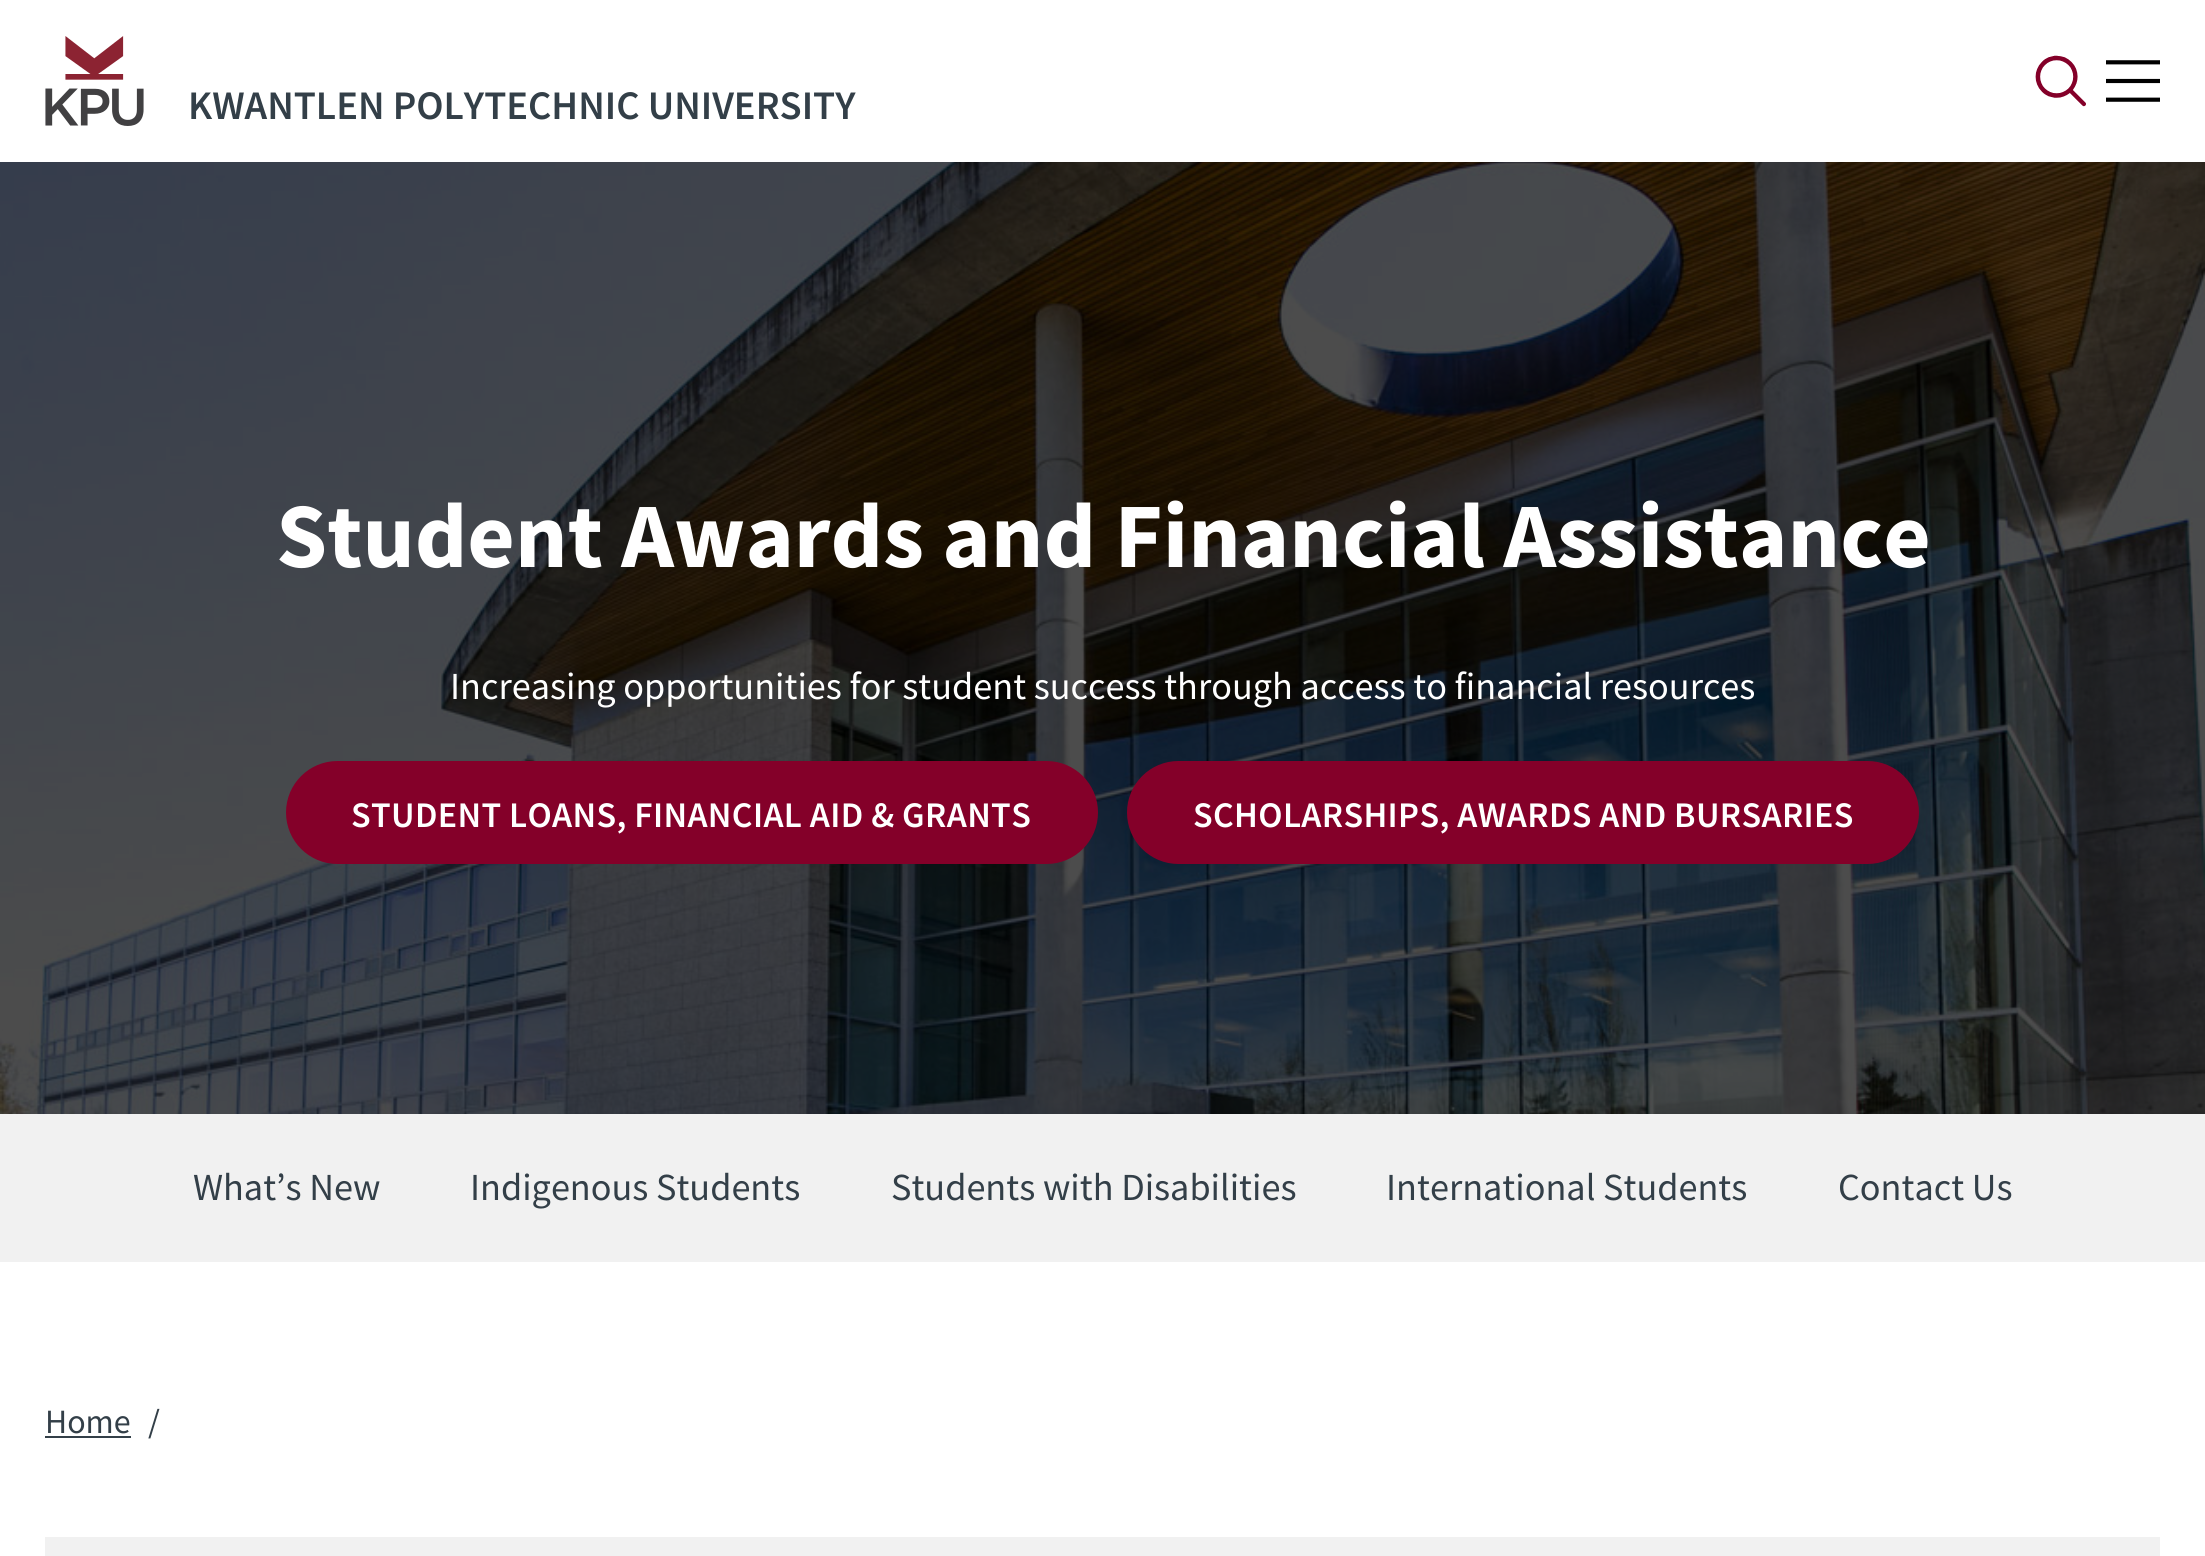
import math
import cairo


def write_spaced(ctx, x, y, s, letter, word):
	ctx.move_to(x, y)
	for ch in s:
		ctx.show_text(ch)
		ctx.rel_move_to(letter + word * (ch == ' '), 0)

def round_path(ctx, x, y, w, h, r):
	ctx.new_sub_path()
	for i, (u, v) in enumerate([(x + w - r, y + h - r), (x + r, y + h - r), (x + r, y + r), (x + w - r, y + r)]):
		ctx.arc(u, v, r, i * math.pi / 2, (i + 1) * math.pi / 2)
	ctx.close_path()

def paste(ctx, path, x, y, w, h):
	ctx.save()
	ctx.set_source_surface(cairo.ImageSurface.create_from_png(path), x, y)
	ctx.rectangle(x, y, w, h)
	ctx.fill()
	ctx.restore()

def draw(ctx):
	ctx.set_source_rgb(1, 1, 1)
	ctx.paint()
	paste(ctx, 'media/1.png', 45, 36, 99, 90)
	paste(ctx, 'media/2.png', 2035, 55, 51, 52)
	paste(ctx, 'media/3.png', 2106, 60, 54, 42)
	ctx.select_font_face('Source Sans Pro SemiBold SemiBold')
	ctx.set_font_size(40.5)
	ctx.set_source_rgb(0.2, 0.247, 0.282)
	ctx.move_to(188, 119)
	ctx.show_text('KWANTLEN POLYTECHNIC UNIVERSITY')
	paste(ctx, 'media/4.png', 0, 162, 2205, 952)
	ctx.select_font_face('Source Sans Pro', cairo.FONT_SLANT_NORMAL, cairo.FONT_WEIGHT_BOLD)
	ctx.set_font_size(92)
	ctx.set_source_rgb(1, 1, 1)
	ctx.move_to(276, 567)
	ctx.show_text('Student Awards and Financial Assistance')
	ctx.select_font_face('Source Sans Pro')
	ctx.set_font_size(38.25)
	ctx.move_to(450, 699)
	ctx.show_text('Increasing opportunities for student success through access to financial resources')
	ctx.set_source_rgb(0.518, 0, 0.161)
	round_path(ctx, 287, 762, 810, 101, 50.5)
	ctx.fill_preserve()
	ctx.stroke()
	ctx.select_font_face('Source Sans Pro SemiBold SemiBold')
	ctx.set_font_size(36)
	ctx.set_source_rgb(1, 1, 1)
	write_spaced(ctx, 351, 827, 'STUDENT LOANS, FINANCIAL AID & GRANTS', 0.35, 0)
	ctx.set_source_rgb(0.518, 0, 0.161)
	round_path(ctx, 1128, 762, 790, 101, 50.5)
	ctx.fill_preserve()
	ctx.stroke()
	ctx.set_source_rgb(1, 1, 1)
	write_spaced(ctx, 1193, 827, 'SCHOLARSHIPS, AWARDS AND BURSARIES', 0.35, 0)
	ctx.set_source_rgb(0.945, 0.945, 0.945)
	ctx.rectangle(0, 1114, 2205, 148)
	ctx.fill()
	ctx.select_font_face('Source Sans Pro')
	ctx.set_font_size(38.25)
	ctx.set_source_rgb(0.2, 0.247, 0.282)
	for x, y, s in [
		(193, 1200, 'What’s New'),
		(470, 1200, 'Indigenous Students'),
		(891, 1200, 'Students with Disabilities'),
		(1386, 1200, 'International Students'),
		(1838, 1200, 'Contact Us'),
	]:
		ctx.move_to(x, y)
		ctx.show_text(s)
	ctx.set_font_size(34)
	ctx.move_to(45, 1433)
	ctx.show_text('Home')
	ctx.rectangle(45, 1436, 86, 2)
	ctx.fill()
	ctx.move_to(148, 1433)
	ctx.show_text('/')
	ctx.set_source_rgb(0.945, 0.945, 0.945)
	ctx.rectangle(45, 1537, 2115, 19)
	ctx.fill()


surface = cairo.ImageSurface(cairo.FORMAT_RGB24, 2205, 1556)
ctx = cairo.Context(surface)
options = cairo.FontOptions()
options.set_hint_metrics(cairo.HINT_METRICS_OFF)
options.set_hint_style(cairo.HINT_STYLE_NONE)
ctx.set_font_options(options)
ctx.set_miter_limit(4)
draw(ctx)
surface.write_to_png('image.png')
